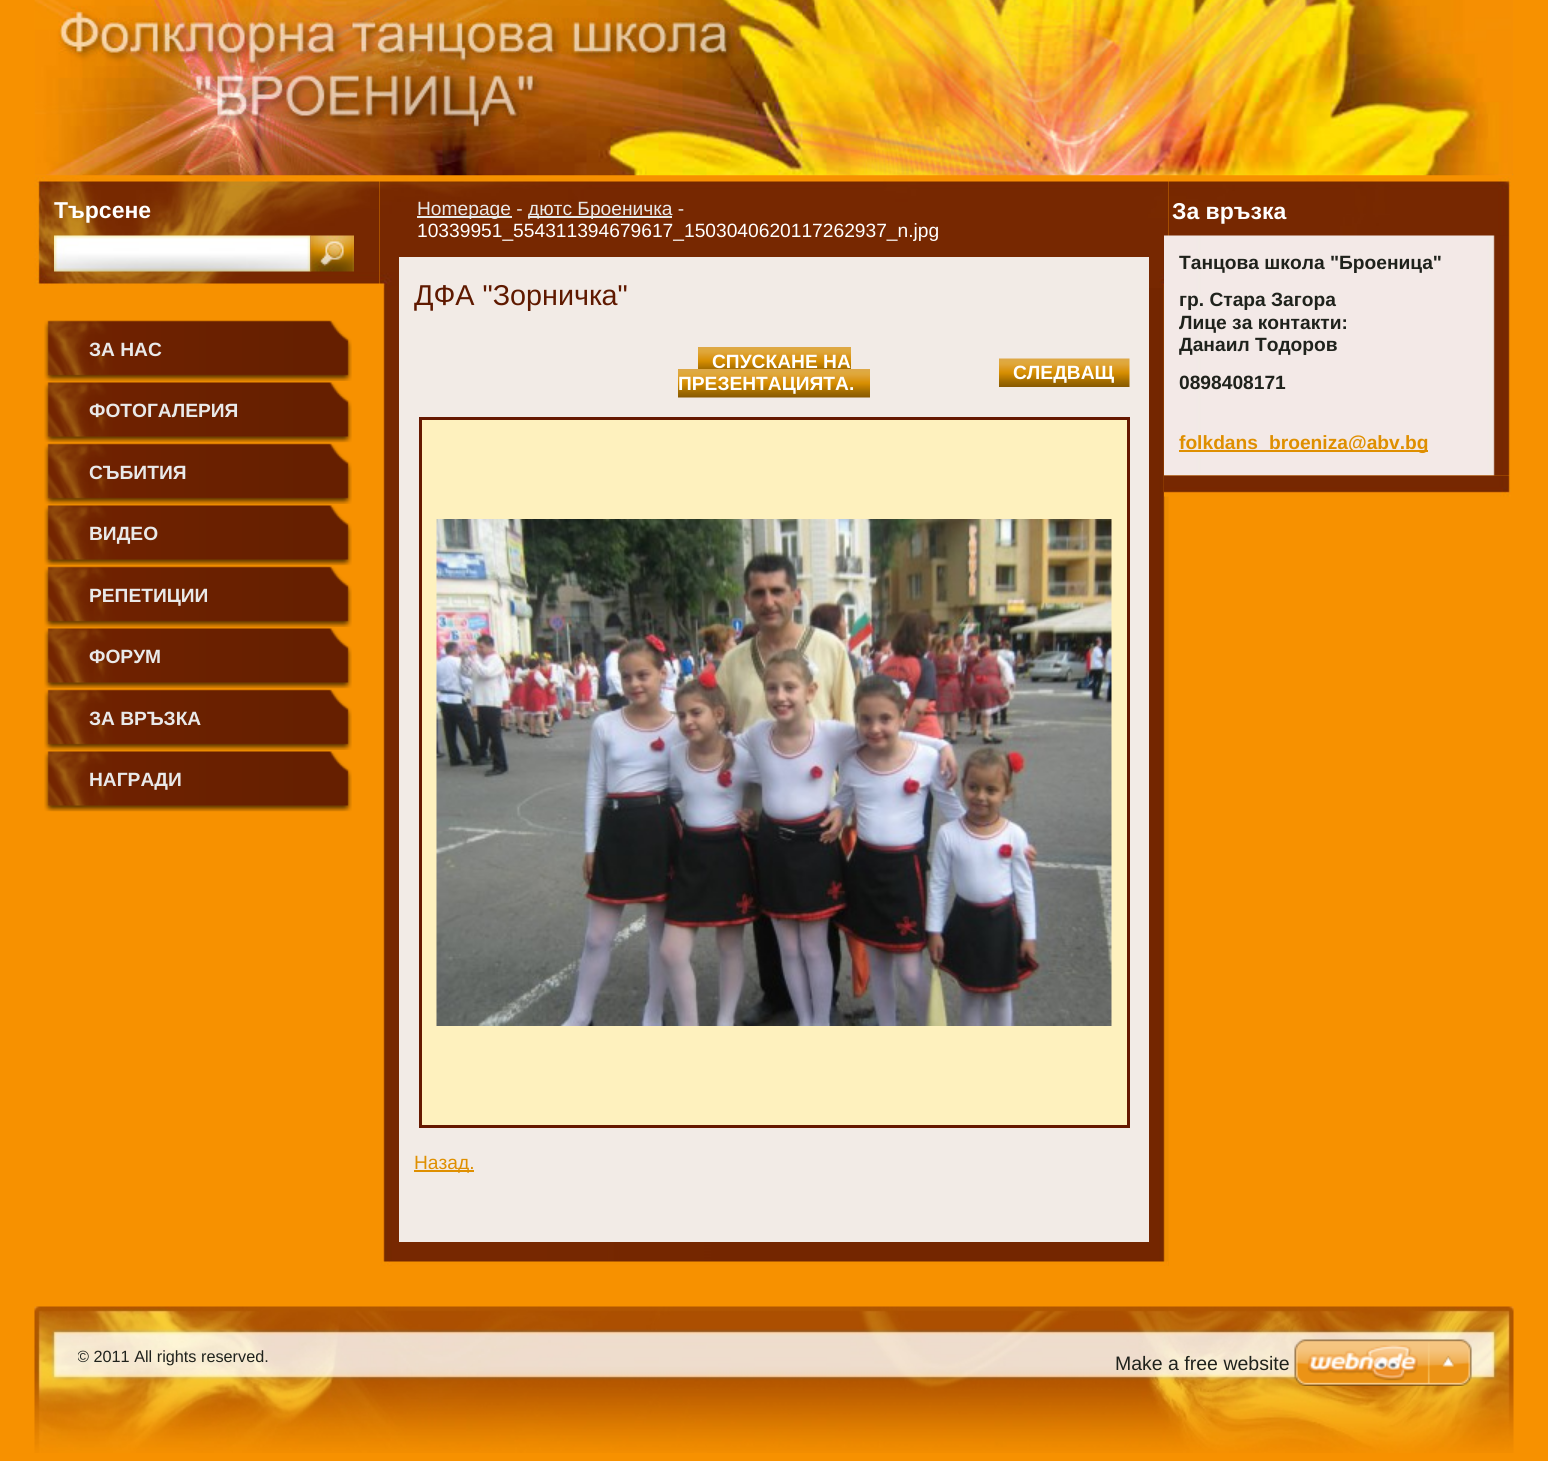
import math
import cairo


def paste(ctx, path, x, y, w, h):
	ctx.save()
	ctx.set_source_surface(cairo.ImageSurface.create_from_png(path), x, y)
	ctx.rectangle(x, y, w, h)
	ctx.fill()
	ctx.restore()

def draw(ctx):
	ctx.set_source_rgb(0.965, 0.569, 0)
	ctx.paint()
	paste(ctx, 'media/1.png', 34, 0, 1480, 176)
	paste(ctx, 'media/2.png', 34, 177, 1477, 111)
	ctx.select_font_face('Liberation Sans', cairo.FONT_SLANT_NORMAL, cairo.FONT_WEIGHT_BOLD)
	ctx.set_font_size(23)
	ctx.set_source_rgb(1, 1, 1)
	ctx.move_to(54, 218)
	ctx.show_text('Търсене')
	paste(ctx, 'media/3.png', 54, 235, 257, 37)
	paste(ctx, 'media/4.png', 310, 235, 44, 37)
	paste(ctx, 'media/5.png', 379, 177, 790, 1089)
	paste(ctx, 'media/6.png', 379, 177, 790, 111)
	ctx.set_source_rgb(0.914, 0.914, 0.914)
	ctx.rectangle(417, 216, 95, 2)
	ctx.fill()
	ctx.select_font_face('Liberation Sans')
	ctx.set_font_size(19.2)
	ctx.move_to(417, 215)
	ctx.show_text('Homepage -')
	ctx.rectangle(528, 216, 144, 2)
	ctx.fill()
	ctx.move_to(528, 215)
	ctx.show_text('дютс Броеничка -')
	ctx.set_source_rgb(1, 1, 1)
	ctx.move_to(417, 237)
	ctx.show_text('10339951_554311394679617_1503040620117262937_n.jpg')
	ctx.set_source_rgb(0.949, 0.918, 0.902)
	ctx.rectangle(399, 257, 750, 985)
	ctx.fill()
	ctx.set_font_size(28.75)
	ctx.set_source_rgb(0.373, 0.098, 0)
	ctx.move_to(414, 305)
	ctx.show_text('ДФА "Зорничка"')
	paste(ctx, 'media/7.png', 678, 347, 192, 51)
	ctx.select_font_face('Liberation Sans', cairo.FONT_SLANT_NORMAL, cairo.FONT_WEIGHT_BOLD)
	ctx.set_font_size(19.2)
	ctx.set_source_rgb(1, 1, 1)
	ctx.move_to(712, 368)
	ctx.show_text('СПУСКАНЕ НА')
	ctx.move_to(678, 390)
	ctx.show_text('ПРЕЗЕНТАЦИЯТА.')
	paste(ctx, 'media/8.png', 999, 358, 131, 29)
	ctx.move_to(1013, 379)
	ctx.show_text('СЛЕДВАЩ')
	ctx.set_source_rgb(0.996, 0.945, 0.745)
	ctx.rectangle(420.5, 418.5, 708, 708)
	ctx.fill_preserve()
	ctx.set_source_rgb(0.4, 0.094, 0)
	ctx.set_line_width(3)
	ctx.stroke()
	paste(ctx, 'media/9.png', 436, 519, 676, 507)
	ctx.set_source_rgb(0.875, 0.561, 0)
	ctx.rectangle(414, 1170, 60, 2)
	ctx.fill()
	ctx.select_font_face('Liberation Sans')
	ctx.move_to(414, 1169)
	ctx.show_text('Назад.')
	paste(ctx, 'media/10.png', 380, 1261, 788, 5)
	ctx.select_font_face('Liberation Sans', cairo.FONT_SLANT_NORMAL, cairo.FONT_WEIGHT_BOLD)
	ctx.set_font_size(23)
	ctx.set_source_rgb(1, 1, 1)
	ctx.move_to(1172, 219)
	ctx.show_text('За връзка')
	paste(ctx, 'media/11.png', 1164, 235, 347, 241)
	ctx.set_font_size(19.2)
	ctx.set_source_rgb(0.122, 0.133, 0.11)
	for x, y, s in [
		(1179, 269, 'Танцова школа "Броеница"'),
		(1179, 306, 'гр. Стара Загора'),
		(1179, 329, 'Лице за контакти:'),
		(1179, 351, 'Данаил Тодоров'),
		(1179, 389, '0898408171'),
	]:
		ctx.move_to(x, y)
		ctx.show_text(s)
	ctx.set_source_rgb(0.875, 0.561, 0)
	ctx.move_to(1179, 449)
	ctx.show_text('folkdans')
	ctx.rectangle(1179, 450, 249, 2)
	ctx.fill()
	ctx.move_to(1269, 449)
	ctx.show_text('broeniza@abv.bg')
	paste(ctx, 'media/12.png', 1164, 475, 347, 22)
	paste(ctx, 'media/13.png', 44, 320, 308, 61)
	ctx.set_source_rgb(0.914, 0.914, 0.914)
	ctx.move_to(89, 356)
	ctx.show_text('ЗА НАС')
	paste(ctx, 'media/14.png', 44, 381, 308, 62)
	ctx.move_to(89, 417)
	ctx.show_text('ФОТОГАЛЕРИЯ')
	paste(ctx, 'media/13.png', 44, 443, 308, 61)
	ctx.move_to(89, 479)
	ctx.show_text('СЪБИТИЯ')
	paste(ctx, 'media/14.png', 44, 504, 308, 62)
	ctx.move_to(89, 540)
	ctx.show_text('ВИДЕО')
	paste(ctx, 'media/13.png', 44, 566, 308, 61)
	ctx.move_to(89, 602)
	ctx.show_text('РЕПЕТИЦИИ')
	paste(ctx, 'media/14.png', 44, 627, 308, 62)
	ctx.move_to(89, 663)
	ctx.show_text('ФОРУМ')
	paste(ctx, 'media/13.png', 44, 689, 308, 61)
	ctx.move_to(89, 725)
	ctx.show_text('ЗА ВРЪЗКА')
	paste(ctx, 'media/14.png', 44, 750, 308, 62)
	ctx.move_to(89, 786)
	ctx.show_text('НАГРАДИ')
	paste(ctx, 'media/15.png', 34, 1306, 1480, 147)
	ctx.save()
	ctx.rectangle(78, 1346, 675, 24)
	ctx.clip()
	ctx.select_font_face('Liberation Sans')
	ctx.set_font_size(16.25)
	ctx.set_source_rgb(0.122, 0.133, 0.11)
	ctx.move_to(77, 1362)
	ctx.show_text('© 2011 All rights reserved.')
	ctx.restore()
	ctx.select_font_face('Liberation Sans')
	ctx.set_font_size(19.5)
	ctx.set_source_rgb(0.122, 0.133, 0.11)
	ctx.move_to(1115, 1370)
	ctx.show_text('Make a free website')
	paste(ctx, 'media/16.png', 1294, 1339, 178, 47)


surface = cairo.ImageSurface(cairo.FORMAT_RGB24, 1548, 1461)
ctx = cairo.Context(surface)
options = cairo.FontOptions()
options.set_hint_metrics(cairo.HINT_METRICS_OFF)
options.set_hint_style(cairo.HINT_STYLE_NONE)
ctx.set_font_options(options)
ctx.set_miter_limit(4)
draw(ctx)
surface.write_to_png('image.png')
